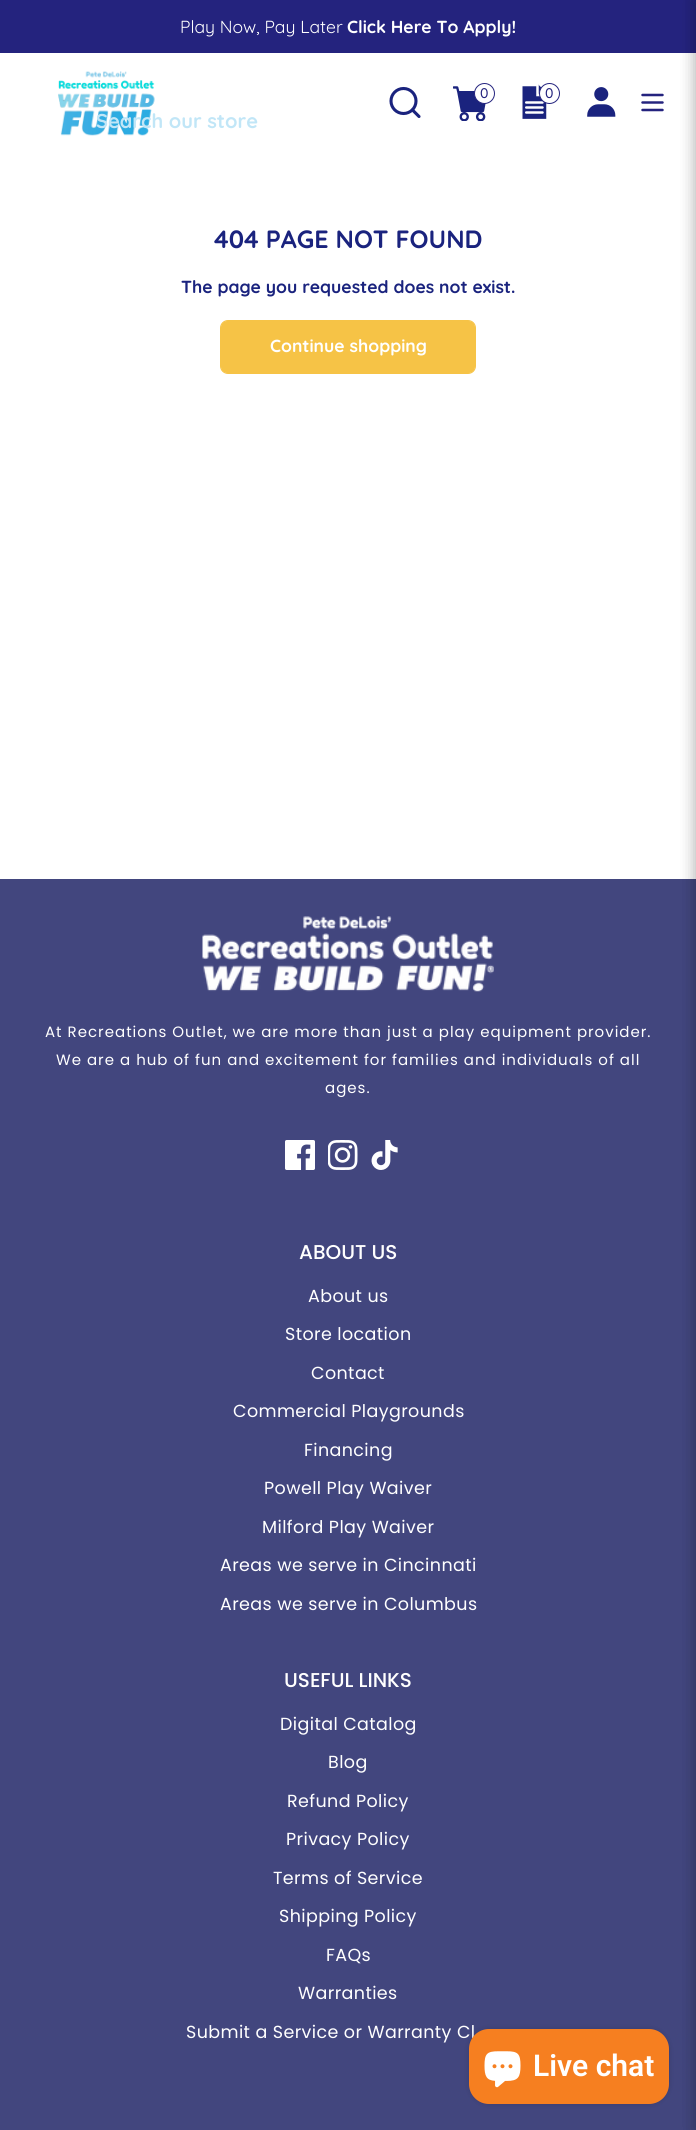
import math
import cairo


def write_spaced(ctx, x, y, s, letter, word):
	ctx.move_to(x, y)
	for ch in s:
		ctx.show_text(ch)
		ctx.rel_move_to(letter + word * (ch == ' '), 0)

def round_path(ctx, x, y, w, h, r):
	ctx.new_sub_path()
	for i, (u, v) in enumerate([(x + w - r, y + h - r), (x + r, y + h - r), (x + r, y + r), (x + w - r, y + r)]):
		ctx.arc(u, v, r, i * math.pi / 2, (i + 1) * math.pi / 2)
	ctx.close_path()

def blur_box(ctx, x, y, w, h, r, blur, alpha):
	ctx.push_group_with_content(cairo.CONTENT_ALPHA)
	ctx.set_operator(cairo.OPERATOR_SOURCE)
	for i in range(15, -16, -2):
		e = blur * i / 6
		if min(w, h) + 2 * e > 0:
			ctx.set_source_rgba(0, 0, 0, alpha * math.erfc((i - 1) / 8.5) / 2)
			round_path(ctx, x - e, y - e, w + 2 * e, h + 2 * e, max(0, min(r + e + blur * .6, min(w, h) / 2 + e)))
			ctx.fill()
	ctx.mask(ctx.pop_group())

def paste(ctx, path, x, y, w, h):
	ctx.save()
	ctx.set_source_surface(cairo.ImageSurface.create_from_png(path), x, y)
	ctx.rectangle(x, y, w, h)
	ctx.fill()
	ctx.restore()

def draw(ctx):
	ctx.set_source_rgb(1, 1, 1)
	ctx.paint()
	ctx.set_source_rgb(0.141, 0.137, 0.494)
	ctx.rectangle(0, 0, 696, 53)
	ctx.fill()
	ctx.select_font_face('Quicksand')
	ctx.set_font_size(17.5)
	ctx.set_source_rgb(1, 1, 1)
	ctx.move_to(180, 33)
	ctx.show_text('Play Now, Pay Later')
	ctx.select_font_face('Quicksand', cairo.FONT_SLANT_NORMAL, cairo.FONT_WEIGHT_BOLD)
	ctx.move_to(347, 33)
	ctx.show_text('Click Here To Apply!')
	paste(ctx, 'media/1.png', 58, 71, 97, 65)
	ctx.set_source_rgb(0.259, 0.275, 0.494)
	ctx.rectangle(0, 879, 696, 1251)
	ctx.fill()
	ctx.set_source_rgb(0, 0, 0)
	blur_box(ctx, 694, 0, 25, 2130, 0, 7.5, 0.15)
	ctx.arc(403.5, 101, 12.5, 0, 2 * math.pi)
	ctx.set_source_rgb(0.102, 0.137, 0.494)
	ctx.set_line_width(3.1)
	ctx.stroke()
	ctx.new_path()
	ctx.move_to(419, 116.5)
	ctx.line_to(412.5, 110)
	ctx.set_line_cap(cairo.LINE_CAP_ROUND)
	ctx.set_line_join(cairo.LINE_JOIN_ROUND)
	ctx.stroke()
	paste(ctx, 'media/2.png', 453, 86, 33, 35)
	ctx.set_source_rgb(1, 1, 1)
	ctx.arc(484.5, 93.5, 10, 0, 2 * math.pi)
	ctx.fill_preserve()
	ctx.set_source_rgb(0.141, 0.137, 0.494)
	ctx.set_line_width(1)
	ctx.set_line_cap(cairo.LINE_CAP_BUTT)
	ctx.set_line_join(cairo.LINE_JOIN_MITER)
	ctx.stroke()
	ctx.select_font_face('Quicksand Medium')
	ctx.set_font_size(14)
	ctx.move_to(480, 98)
	ctx.show_text('0')
	paste(ctx, 'media/3.png', 522, 84, 26, 35)
	ctx.set_source_rgb(1, 1, 1)
	ctx.arc(549.5, 93.5, 10, 0, 2 * math.pi)
	ctx.fill_preserve()
	ctx.set_source_rgb(0.141, 0.137, 0.494)
	ctx.stroke()
	ctx.move_to(545, 98)
	ctx.show_text('0')
	paste(ctx, 'media/4.png', 587, 87, 29, 30)
	ctx.set_source_rgb(0, 0, 0)
	blur_box(ctx, 694, 0, 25, 2130, 0, 7.5, 0.15)
	ctx.new_path()
	ctx.move_to(642.5, 102.5)
	ctx.line_to(662.5, 102.5)
	ctx.move_to(642.5, 95)
	ctx.line_to(662.5, 95)
	ctx.move_to(642.5, 110)
	ctx.line_to(662.5, 110)
	ctx.set_source_rgb(0.141, 0.137, 0.494)
	ctx.set_line_width(2.5)
	ctx.set_line_cap(cairo.LINE_CAP_ROUND)
	ctx.set_line_join(cairo.LINE_JOIN_ROUND)
	ctx.stroke()
	ctx.select_font_face('Quicksand', cairo.FONT_SLANT_NORMAL, cairo.FONT_WEIGHT_BOLD)
	ctx.set_font_size(20)
	ctx.set_source_rgb(0.757, 0.902, 0.965)
	ctx.move_to(96, 128)
	ctx.show_text('Search our store')
	ctx.set_font_size(25)
	ctx.set_source_rgb(0.102, 0.137, 0.494)
	ctx.move_to(214, 248)
	ctx.show_text('404 PAGE NOT FOUND')
	ctx.set_font_size(17.5)
	ctx.move_to(181, 293)
	ctx.show_text('The page you requested does not exist.')
	round_path(ctx, 220.5, 320.5, 255, 53, 7.5)
	ctx.set_source_rgb(0.961, 0.765, 0.275)
	ctx.set_line_width(1)
	ctx.set_line_cap(cairo.LINE_CAP_BUTT)
	ctx.set_line_join(cairo.LINE_JOIN_MITER)
	ctx.stroke()
	round_path(ctx, 221, 321, 254, 52, 6)
	ctx.fill()
	ctx.set_source_rgb(1, 1, 1)
	ctx.move_to(270, 352)
	ctx.show_text('Continue shopping')
	paste(ctx, 'media/5.png', 202, 916, 292, 76)
	ctx.select_font_face('Poppins')
	ctx.set_font_size(15)
	for x, y, s in [
		(45, 1037, 'At Recreations Outlet, we are more than just a play equipment provider.'),
		(56, 1065, 'We are a hub of fun and excitement for families and individuals of all'),
		(325, 1093, 'ages.'),
	]:
		write_spaced(ctx, x, y, s, 1, 0)
	paste(ctx, 'media/6.png', 285, 1140, 30, 30)
	paste(ctx, 'media/7.png', 328, 1140, 30, 30)
	paste(ctx, 'media/8.png', 371, 1140, 27, 30)
	ctx.select_font_face('Poppins Medium')
	ctx.set_font_size(20)
	ctx.move_to(299, 1259)
	ctx.show_text('ABOUT US')
	ctx.select_font_face('Poppins')
	ctx.set_font_size(17.5)
	for x, y, s in [
		(308, 1302, 'About us'),
		(285, 1340, 'Store location'),
		(311, 1379, 'Contact'),
		(233, 1417, 'Commercial Playgrounds'),
		(304, 1456, 'Financing'),
		(264, 1494, 'Powell Play Waiver'),
		(262, 1533, 'Milford Play Waiver'),
		(220, 1571, 'Areas we serve in Cincinnati'),
		(220, 1610, 'Areas we serve in Columbus'),
	]:
		write_spaced(ctx, x, y, s, 0.4, 0)
	ctx.select_font_face('Poppins Medium')
	ctx.set_font_size(20)
	ctx.move_to(284, 1687)
	ctx.show_text('USEFUL LINKS')
	ctx.select_font_face('Poppins')
	ctx.set_font_size(17.5)
	for x, y, s in [
		(280, 1730, 'Digital Catalog'),
		(328, 1768, 'Blog'),
		(287, 1807, 'Refund Policy'),
		(286, 1845, 'Privacy Policy'),
		(273, 1884, 'Terms of Service'),
		(279, 1922, 'Shipping Policy'),
		(326, 1961, 'FAQs'),
		(298, 1999, 'Warranties'),
		(186, 2038, 'Submit a Service or Warranty Cl'),
	]:
		write_spaced(ctx, x, y, s, 0.4, 0)
	ctx.set_source_rgb(0, 0, 0)
	blur_box(ctx, 469, 2029, 200, 75, 20, 3, 0.15)
	ctx.set_source_rgb(0.961, 0.498, 0.125)
	round_path(ctx, 469, 2029, 200, 75, 20)
	ctx.fill()
	paste(ctx, 'media/9.png', 484, 2051, 37, 37)
	ctx.select_font_face('Roboto SemiBold')
	ctx.set_font_size(30)
	ctx.set_source_rgb(1, 1, 1)
	ctx.move_to(533, 2076)
	ctx.show_text('Live chat')


surface = cairo.ImageSurface(cairo.FORMAT_RGB24, 696, 2130)
ctx = cairo.Context(surface)
options = cairo.FontOptions()
options.set_hint_metrics(cairo.HINT_METRICS_OFF)
options.set_hint_style(cairo.HINT_STYLE_NONE)
ctx.set_font_options(options)
ctx.set_miter_limit(4)
draw(ctx)
surface.write_to_png('image.png')
